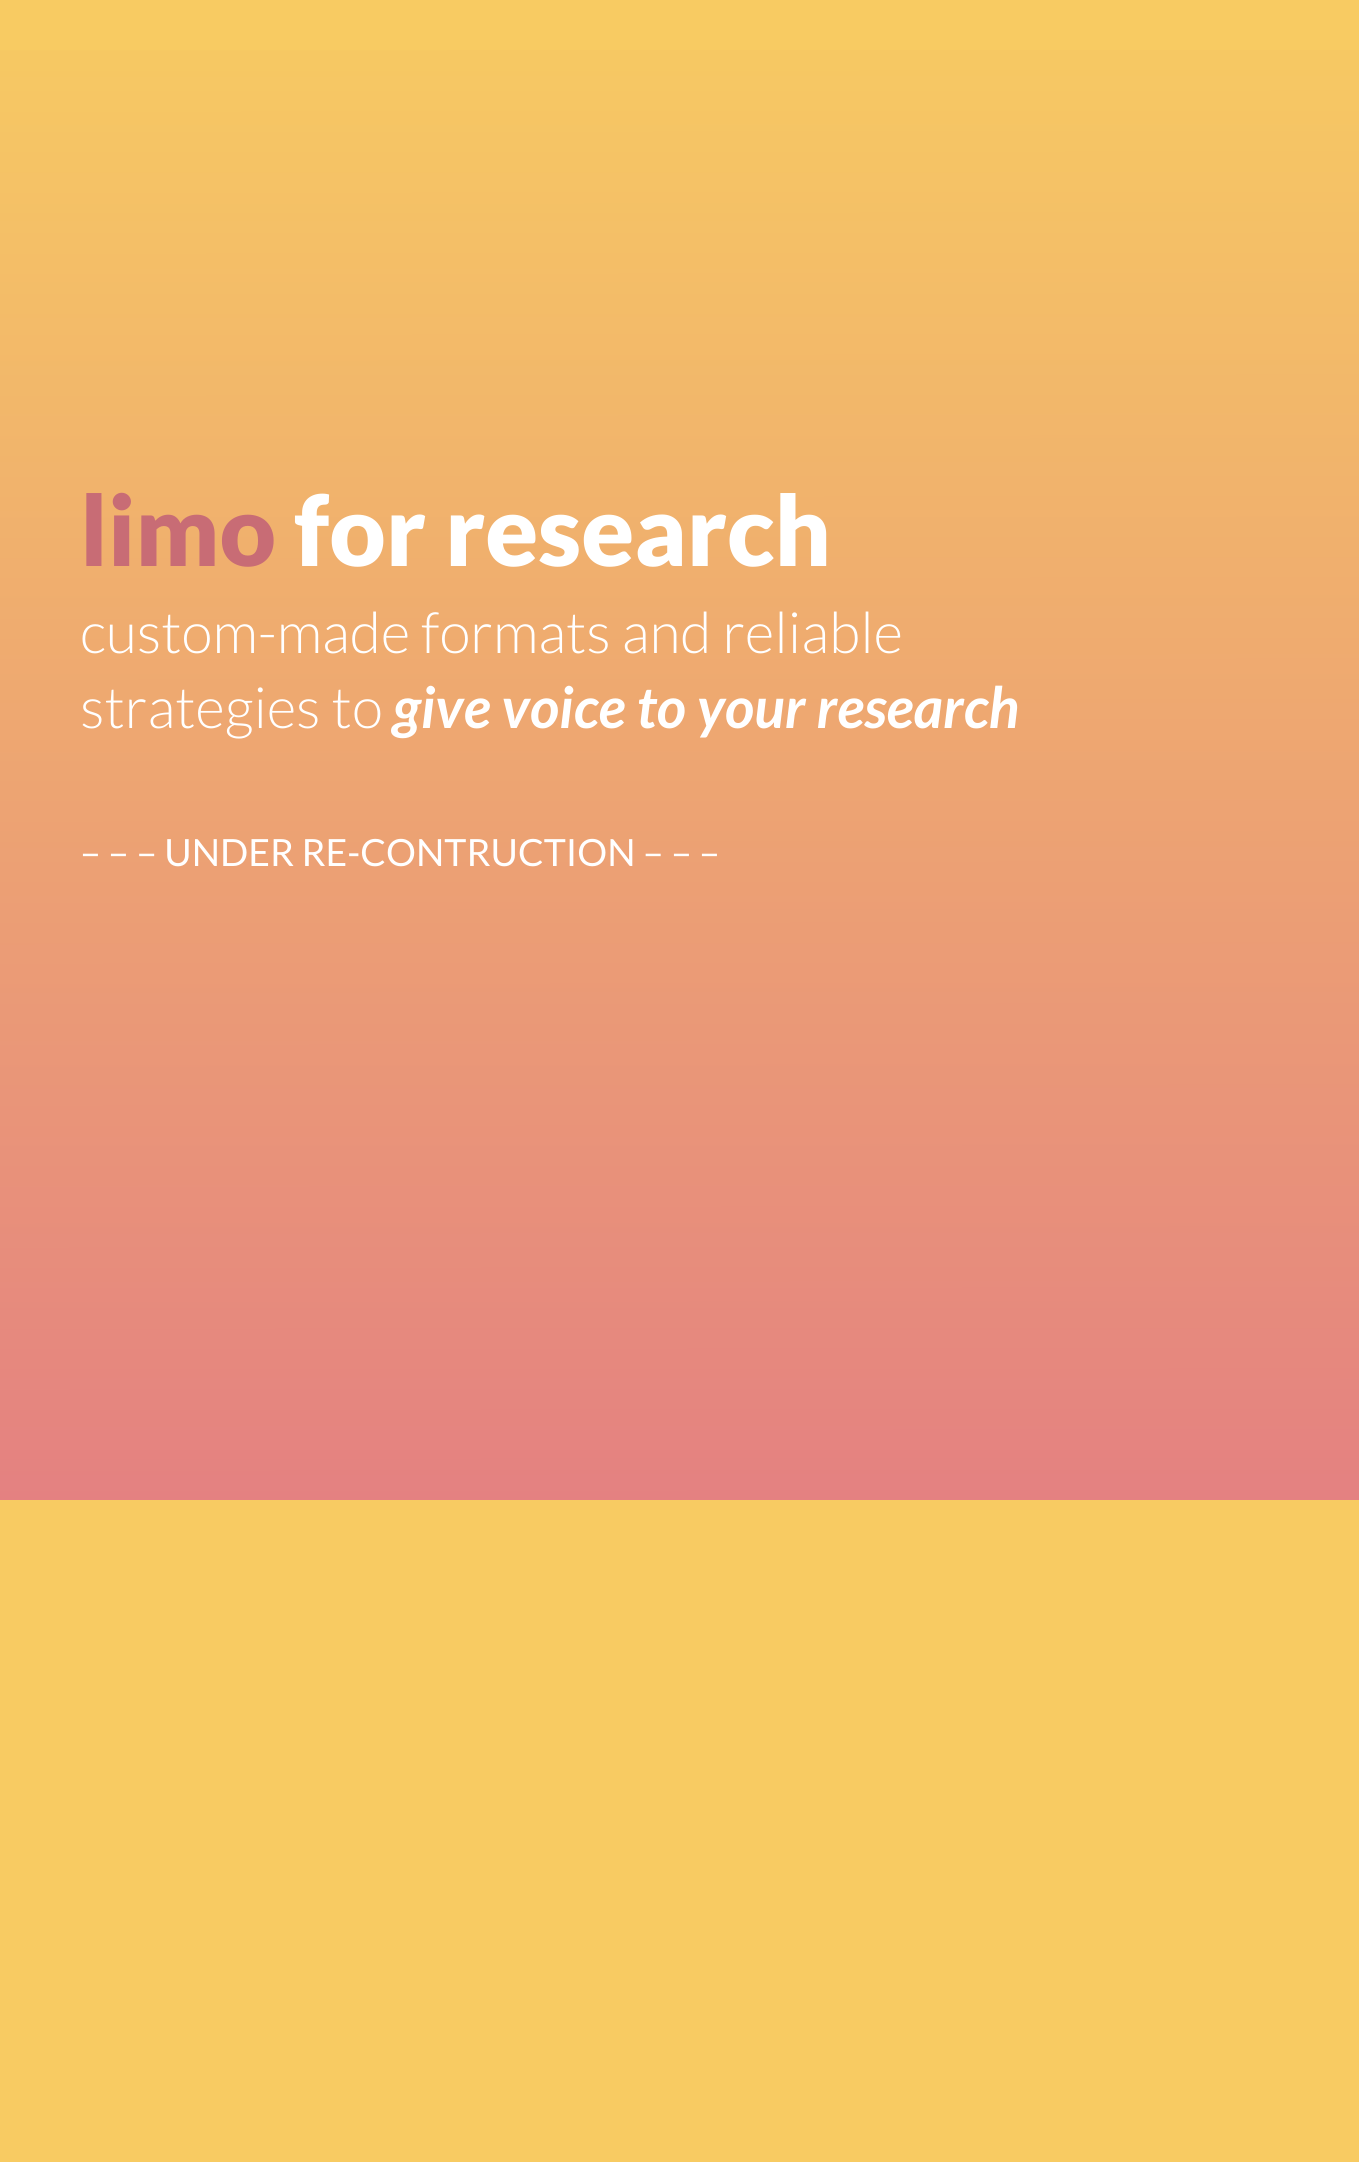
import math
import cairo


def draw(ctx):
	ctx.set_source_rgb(0.969, 0.796, 0.384)
	ctx.paint()
	gradient = cairo.LinearGradient(679, 0, 680, 1500)
	gradient.add_color_stop_rgba(0, 0.969, 0.796, 0.384, 1)
	gradient.add_color_stop_rgba(1, 0.894, 0.506, 0.506, 1)
	ctx.set_source(gradient)
	ctx.rectangle(0, 50, 1359, 1450)
	ctx.fill()
	ctx.select_font_face('Lato Black')
	ctx.set_font_size(97.5)
	ctx.set_source_rgb(0.784, 0.424, 0.459)
	ctx.move_to(80, 566)
	ctx.show_text('limo')
	ctx.set_source_rgb(1, 1, 1)
	ctx.move_to(294, 566)
	ctx.show_text('for research')
	ctx.select_font_face('Lato Light')
	ctx.set_font_size(57)
	ctx.move_to(80, 653)
	ctx.show_text('custom-made formats and reliable')
	ctx.move_to(80, 728)
	ctx.show_text('strategies to')
	ctx.select_font_face('Lato', cairo.FONT_SLANT_ITALIC, cairo.FONT_WEIGHT_BOLD)
	ctx.move_to(393, 728)
	ctx.show_text('give voice to your research')
	ctx.select_font_face('Lato')
	ctx.set_font_size(37.5)
	ctx.move_to(80, 866)
	ctx.show_text('– – – UNDER RE-CONTRUCTION – – –')


surface = cairo.ImageSurface(cairo.FORMAT_RGB24, 1359, 2162)
ctx = cairo.Context(surface)
options = cairo.FontOptions()
options.set_hint_metrics(cairo.HINT_METRICS_OFF)
options.set_hint_style(cairo.HINT_STYLE_NONE)
ctx.set_font_options(options)
ctx.set_miter_limit(4)
draw(ctx)
surface.write_to_png('image.png')
